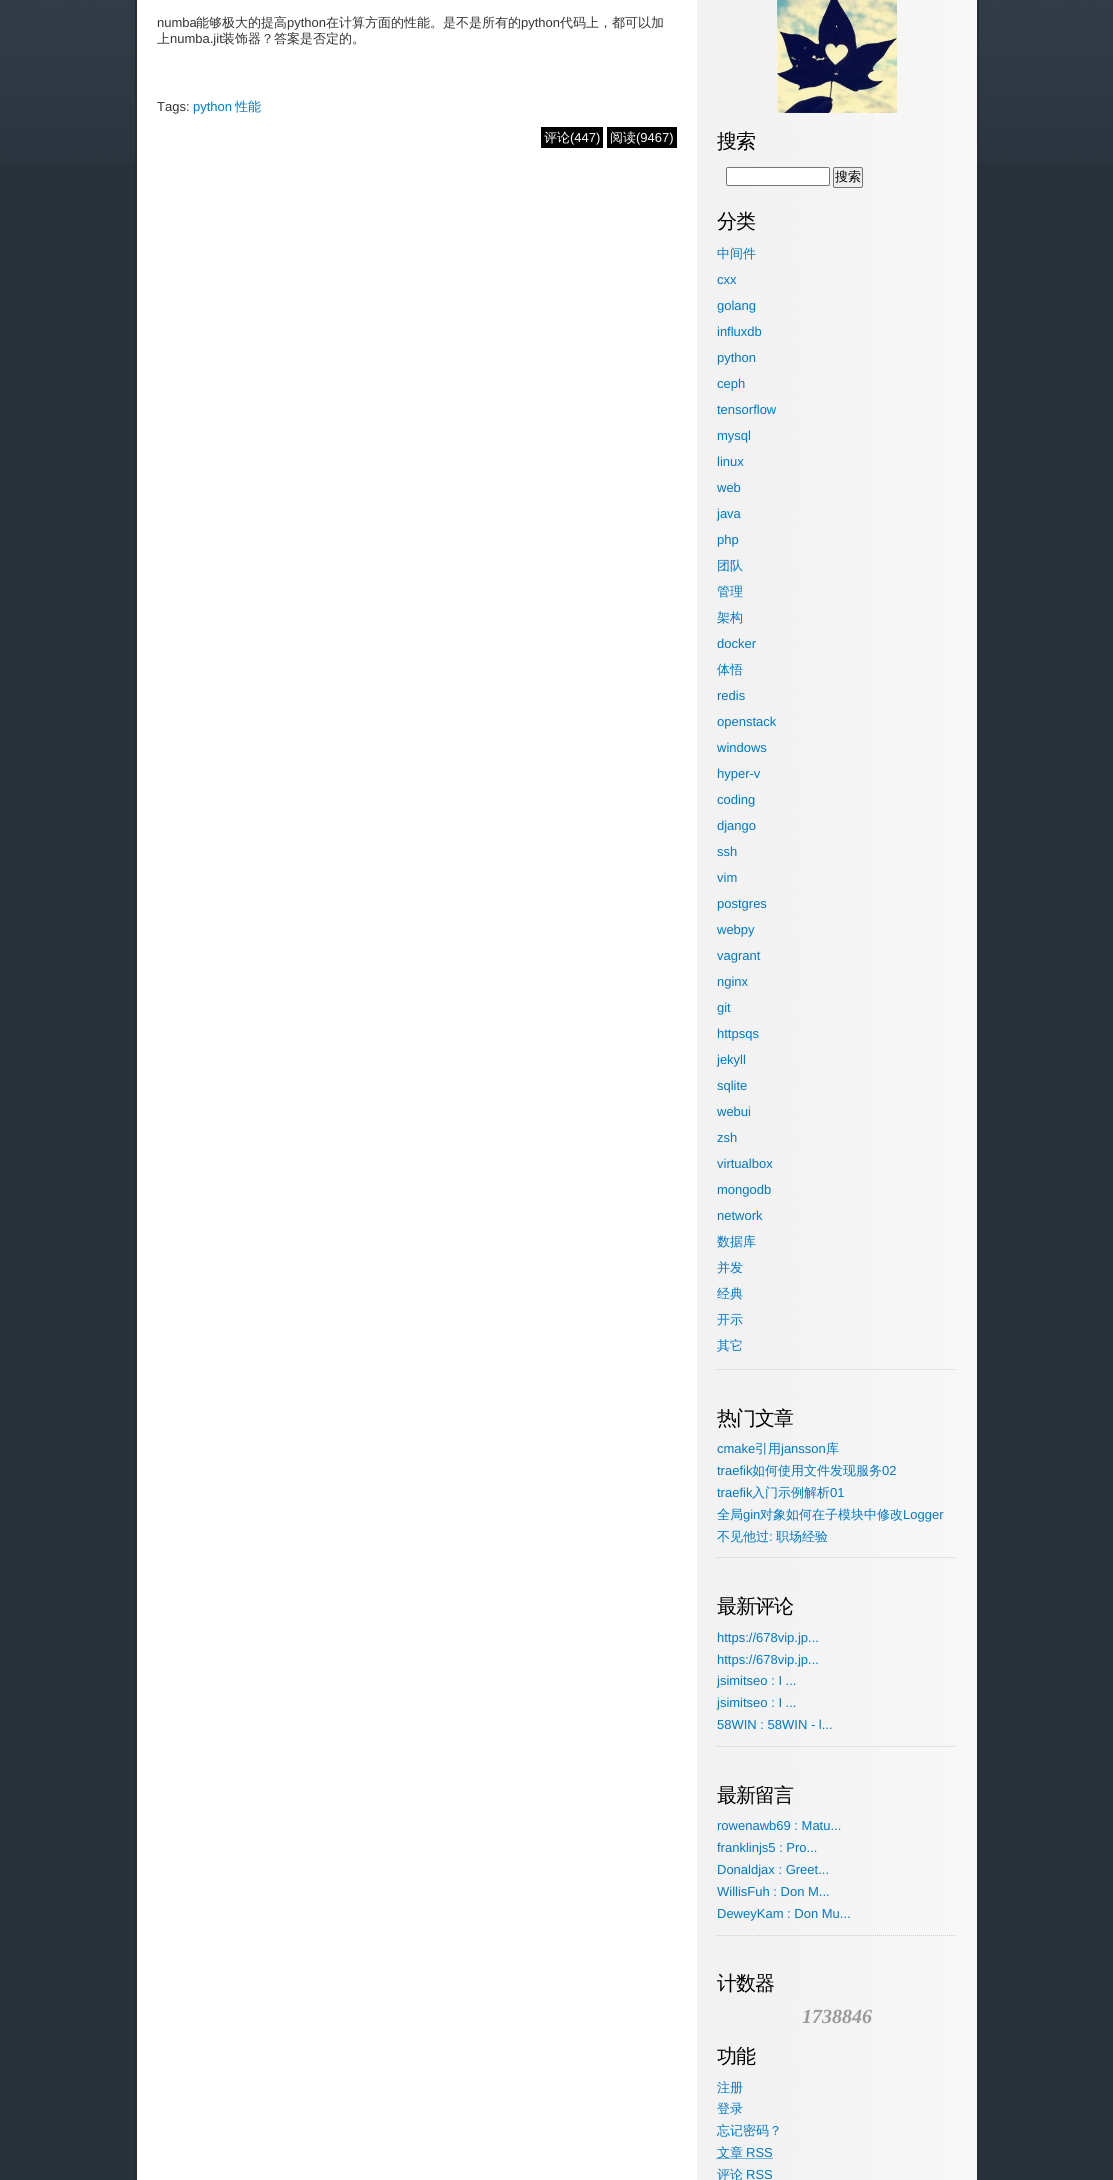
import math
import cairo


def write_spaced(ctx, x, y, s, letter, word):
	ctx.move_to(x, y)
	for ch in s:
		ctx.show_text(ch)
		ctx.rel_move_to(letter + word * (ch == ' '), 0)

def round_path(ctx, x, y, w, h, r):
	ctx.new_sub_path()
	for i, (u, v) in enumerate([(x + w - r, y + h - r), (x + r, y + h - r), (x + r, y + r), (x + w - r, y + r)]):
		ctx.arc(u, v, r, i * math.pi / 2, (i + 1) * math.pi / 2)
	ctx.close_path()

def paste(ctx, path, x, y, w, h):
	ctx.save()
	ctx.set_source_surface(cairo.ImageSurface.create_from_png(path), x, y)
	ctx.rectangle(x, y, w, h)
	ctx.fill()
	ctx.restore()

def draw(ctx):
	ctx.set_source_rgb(0.157, 0.192, 0.227)
	ctx.paint()
	paste(ctx, 'media/1.png', 0, 0, 1113, 164)
	ctx.set_source_rgb(1, 1, 1)
	ctx.rectangle(137, 0, 560, 2180)
	ctx.fill()
	paste(ctx, 'media/2.png', 697, 0, 280, 2180)
	ctx.set_source_rgb(0.141, 0.173, 0.204)
	ctx.rectangle(977, 0, 2, 2180)
	ctx.fill()
	ctx.rectangle(135, 0, 2, 2180)
	ctx.fill()
	ctx.select_font_face('Liberation Sans')
	ctx.set_font_size(13)
	ctx.set_source_rgb(0.2, 0.2, 0.2)
	ctx.move_to(157, 27)
	ctx.show_text('numba')
	ctx.select_font_face('WenQuanYi Zen Hei Medium')
	ctx.move_to(196, 27)
	ctx.show_text('能够极大的提高')
	ctx.select_font_face('Liberation Sans')
	ctx.move_to(287, 27)
	ctx.show_text('python')
	ctx.select_font_face('WenQuanYi Zen Hei Medium')
	ctx.move_to(326, 27)
	ctx.show_text('在计算方面的性能。是不是所有的')
	ctx.select_font_face('Liberation Sans')
	ctx.move_to(521, 27)
	ctx.show_text('python')
	ctx.select_font_face('WenQuanYi Zen Hei Medium')
	ctx.move_to(560, 27)
	ctx.show_text('代码上，都可以加')
	ctx.move_to(157, 43)
	ctx.show_text('上')
	ctx.select_font_face('Liberation Sans')
	ctx.move_to(170, 43)
	ctx.show_text('numba.jit')
	ctx.select_font_face('WenQuanYi Zen Hei Medium')
	ctx.move_to(222, 43)
	ctx.show_text('装饰器？答案是否定的。')
	ctx.select_font_face('Liberation Sans')
	ctx.move_to(157, 111)
	ctx.show_text('Tags:')
	ctx.set_source_rgb(0, 0.471, 0.784)
	ctx.move_to(193, 111)
	ctx.show_text('python')
	ctx.select_font_face('WenQuanYi Zen Hei Medium')
	ctx.move_to(235, 111)
	ctx.show_text('性能')
	ctx.set_source_rgb(0, 0, 0)
	ctx.rectangle(541, 127, 62, 21)
	ctx.fill()
	ctx.set_source_rgb(1, 1, 1)
	ctx.move_to(544, 142)
	ctx.show_text('评论')
	ctx.select_font_face('Liberation Sans')
	ctx.move_to(570, 142)
	ctx.show_text('(447)')
	ctx.set_source_rgb(0, 0, 0)
	ctx.rectangle(607, 127, 70, 21)
	ctx.fill()
	ctx.select_font_face('WenQuanYi Zen Hei Medium')
	ctx.set_source_rgb(1, 1, 1)
	ctx.move_to(610, 142)
	ctx.show_text('阅读')
	ctx.select_font_face('Liberation Sans')
	ctx.move_to(636, 142)
	ctx.show_text('(9467)')
	paste(ctx, 'media/3.png', 777, 0, 120, 113)
	ctx.select_font_face('WenQuanYi Zen Hei Medium')
	ctx.set_font_size(20)
	ctx.set_source_rgb(0, 0, 0)
	write_spaced(ctx, 717, 148, '搜索', -1, 0)
	ctx.set_source_rgb(1, 1, 1)
	round_path(ctx, 726.5, 167.5, 103, 18, 1.5)
	ctx.fill_preserve()
	ctx.set_source_rgb(0.463, 0.463, 0.463)
	ctx.set_line_width(1)
	ctx.stroke()
	ctx.set_source_rgb(0.937, 0.937, 0.937)
	round_path(ctx, 833.5, 167.5, 29, 20, 1.5)
	ctx.fill_preserve()
	ctx.set_source_rgb(0.463, 0.463, 0.463)
	ctx.stroke()
	ctx.set_font_size(13)
	ctx.set_source_rgb(0, 0, 0)
	ctx.move_to(835, 181)
	ctx.show_text('搜索')
	ctx.set_font_size(20)
	write_spaced(ctx, 717, 228, '分类', -1, 0)
	ctx.new_path()
	ctx.move_to(717, 1369.5)
	ctx.line_to(957, 1369.5)
	ctx.set_source_rgb(0.8, 0.8, 0.8)
	ctx.set_dash([1, 1])
	ctx.stroke()
	ctx.set_font_size(13)
	ctx.set_source_rgb(0, 0.471, 0.784)
	ctx.move_to(717, 258)
	ctx.show_text('中间件')
	ctx.select_font_face('Liberation Sans')
	for x, y, s in [
		(717, 284, 'cxx'),
		(717, 310, 'golang'),
		(717, 336, 'influxdb'),
		(717, 362, 'python'),
		(717, 388, 'ceph'),
		(717, 414, 'tensorflow'),
		(717, 440, 'mysql'),
		(717, 466, 'linux'),
		(717, 492, 'web'),
		(717, 518, 'java'),
		(717, 544, 'php'),
	]:
		ctx.move_to(x, y)
		ctx.show_text(s)
	ctx.select_font_face('WenQuanYi Zen Hei Medium')
	for x, y, s in [
		(717, 570, '团队'),
		(717, 596, '管理'),
		(717, 622, '架构'),
	]:
		ctx.move_to(x, y)
		ctx.show_text(s)
	ctx.select_font_face('Liberation Sans')
	ctx.move_to(717, 648)
	ctx.show_text('docker')
	ctx.select_font_face('WenQuanYi Zen Hei Medium')
	ctx.move_to(717, 674)
	ctx.show_text('体悟')
	ctx.select_font_face('Liberation Sans')
	for x, y, s in [
		(717, 700, 'redis'),
		(717, 726, 'openstack'),
		(717, 752, 'windows'),
		(717, 778, 'hyper-v'),
		(717, 804, 'coding'),
		(717, 830, 'django'),
		(717, 856, 'ssh'),
		(717, 882, 'vim'),
		(717, 908, 'postgres'),
		(717, 934, 'webpy'),
		(717, 960, 'vagrant'),
		(717, 986, 'nginx'),
		(717, 1012, 'git'),
		(717, 1038, 'httpsqs'),
		(717, 1064, 'jekyll'),
		(717, 1090, 'sqlite'),
		(717, 1116, 'webui'),
		(717, 1142, 'zsh'),
		(717, 1168, 'virtualbox'),
		(717, 1194, 'mongodb'),
		(717, 1220, 'network'),
	]:
		ctx.move_to(x, y)
		ctx.show_text(s)
	ctx.select_font_face('WenQuanYi Zen Hei Medium')
	for x, y, s in [
		(717, 1246, '数据库'),
		(717, 1272, '并发'),
		(717, 1298, '经典'),
		(717, 1324, '开示'),
		(717, 1350, '其它'),
	]:
		ctx.move_to(x, y)
		ctx.show_text(s)
	ctx.set_font_size(20)
	ctx.set_source_rgb(0, 0, 0)
	write_spaced(ctx, 717, 1425, '热门文章', -1, 0)
	ctx.new_path()
	ctx.move_to(717, 1557.5)
	ctx.line_to(957, 1557.5)
	ctx.set_source_rgb(0.8, 0.8, 0.8)
	ctx.stroke()
	ctx.select_font_face('Liberation Sans')
	ctx.set_font_size(13)
	ctx.set_source_rgb(0, 0.471, 0.784)
	ctx.move_to(717, 1453)
	ctx.show_text('cmake')
	ctx.select_font_face('WenQuanYi Zen Hei Medium')
	ctx.move_to(755, 1453)
	ctx.show_text('引用')
	ctx.select_font_face('Liberation Sans')
	ctx.move_to(781, 1453)
	ctx.show_text('jansson')
	ctx.select_font_face('WenQuanYi Zen Hei Medium')
	ctx.move_to(826, 1453)
	ctx.show_text('库')
	ctx.select_font_face('Liberation Sans')
	ctx.move_to(717, 1475)
	ctx.show_text('traefik')
	ctx.select_font_face('WenQuanYi Zen Hei Medium')
	ctx.move_to(752, 1475)
	ctx.show_text('如何使用文件发现服务')
	ctx.select_font_face('Liberation Sans')
	ctx.move_to(882, 1475)
	ctx.show_text('02')
	ctx.move_to(717, 1497)
	ctx.show_text('traefik')
	ctx.select_font_face('WenQuanYi Zen Hei Medium')
	ctx.move_to(752, 1497)
	ctx.show_text('入门示例解析')
	ctx.select_font_face('Liberation Sans')
	ctx.move_to(830, 1497)
	ctx.show_text('01')
	ctx.select_font_face('WenQuanYi Zen Hei Medium')
	ctx.move_to(717, 1519)
	ctx.show_text('全局')
	ctx.select_font_face('Liberation Sans')
	ctx.move_to(743, 1519)
	ctx.show_text('gin')
	ctx.select_font_face('WenQuanYi Zen Hei Medium')
	ctx.move_to(760, 1519)
	ctx.show_text('对象如何在子模块中修改')
	ctx.select_font_face('Liberation Sans')
	ctx.move_to(903, 1519)
	ctx.show_text('Logger')
	ctx.select_font_face('WenQuanYi Zen Hei Medium')
	ctx.move_to(717, 1541)
	ctx.show_text('不见他过')
	ctx.select_font_face('Liberation Sans')
	ctx.move_to(769, 1541)
	ctx.show_text(':')
	ctx.select_font_face('WenQuanYi Zen Hei Medium')
	ctx.move_to(776, 1541)
	ctx.show_text('职场经验')
	ctx.set_font_size(20)
	ctx.set_source_rgb(0, 0, 0)
	write_spaced(ctx, 717, 1613, '最新评论', -1, 0)
	ctx.new_path()
	ctx.move_to(717, 1746.5)
	ctx.line_to(957, 1746.5)
	ctx.set_source_rgb(0.8, 0.8, 0.8)
	ctx.stroke()
	ctx.select_font_face('Liberation Sans')
	ctx.set_font_size(13)
	ctx.set_source_rgb(0, 0.471, 0.784)
	for x, y, s in [
		(717, 1642, 'https://678vip.jp...'),
		(717, 1664, 'https://678vip.jp...'),
		(717, 1685, 'jsimitseo : I ...'),
		(717, 1707, 'jsimitseo : I ...'),
		(717, 1729, '58WIN : 58WIN - l...'),
	]:
		ctx.move_to(x, y)
		ctx.show_text(s)
	ctx.select_font_face('WenQuanYi Zen Hei Medium')
	ctx.set_font_size(20)
	ctx.set_source_rgb(0, 0, 0)
	write_spaced(ctx, 717, 1802, '最新留言', -1, 0)
	ctx.new_path()
	ctx.move_to(717, 1935.5)
	ctx.line_to(957, 1935.5)
	ctx.set_source_rgb(0.8, 0.8, 0.8)
	ctx.stroke()
	ctx.select_font_face('Liberation Sans')
	ctx.set_font_size(13)
	ctx.set_source_rgb(0, 0.471, 0.784)
	for x, y, s in [
		(717, 1830, 'rowenawb69 : Matu...'),
		(717, 1852, 'franklinjs5 : Pro...'),
		(717, 1874, 'Donaldjax : Greet...'),
		(717, 1896, 'WillisFuh : Don M...'),
		(717, 1918, 'DeweyKam : Don Mu...'),
	]:
		ctx.move_to(x, y)
		ctx.show_text(s)
	ctx.select_font_face('WenQuanYi Zen Hei Medium')
	ctx.set_font_size(20)
	ctx.set_source_rgb(0, 0, 0)
	write_spaced(ctx, 717, 1990, '计数器', -1, 0)
	ctx.select_font_face('Liberation Serif', cairo.FONT_SLANT_ITALIC, cairo.FONT_WEIGHT_BOLD)
	ctx.set_source_rgb(0.6, 0.6, 0.6)
	ctx.move_to(802, 2023)
	ctx.show_text('1738846')
	ctx.select_font_face('WenQuanYi Zen Hei Medium')
	ctx.set_source_rgb(0, 0, 0)
	write_spaced(ctx, 717, 2063, '功能', -1, 0)
	ctx.set_font_size(13)
	ctx.set_source_rgb(0, 0.471, 0.784)
	for x, y, s in [
		(717, 2092, '注册'),
		(717, 2113, '登录'),
		(717, 2135, '忘记密码？'),
	]:
		ctx.move_to(x, y)
		ctx.show_text(s)
	ctx.new_path()
	ctx.move_to(716.5, 2158.5)
	ctx.line_to(773, 2158.5)
	ctx.stroke()
	ctx.move_to(717, 2157)
	ctx.show_text('文章')
	ctx.select_font_face('Liberation Sans')
	ctx.move_to(746, 2157)
	ctx.show_text('RSS')
	ctx.select_font_face('WenQuanYi Zen Hei Medium')
	ctx.move_to(717, 2179)
	ctx.show_text('评论')
	ctx.select_font_face('Liberation Sans')
	ctx.move_to(746, 2179)
	ctx.show_text('RSS')


surface = cairo.ImageSurface(cairo.FORMAT_RGB24, 1113, 2180)
ctx = cairo.Context(surface)
options = cairo.FontOptions()
options.set_hint_metrics(cairo.HINT_METRICS_OFF)
options.set_hint_style(cairo.HINT_STYLE_NONE)
ctx.set_font_options(options)
ctx.set_miter_limit(4)
draw(ctx)
surface.write_to_png('image.png')
